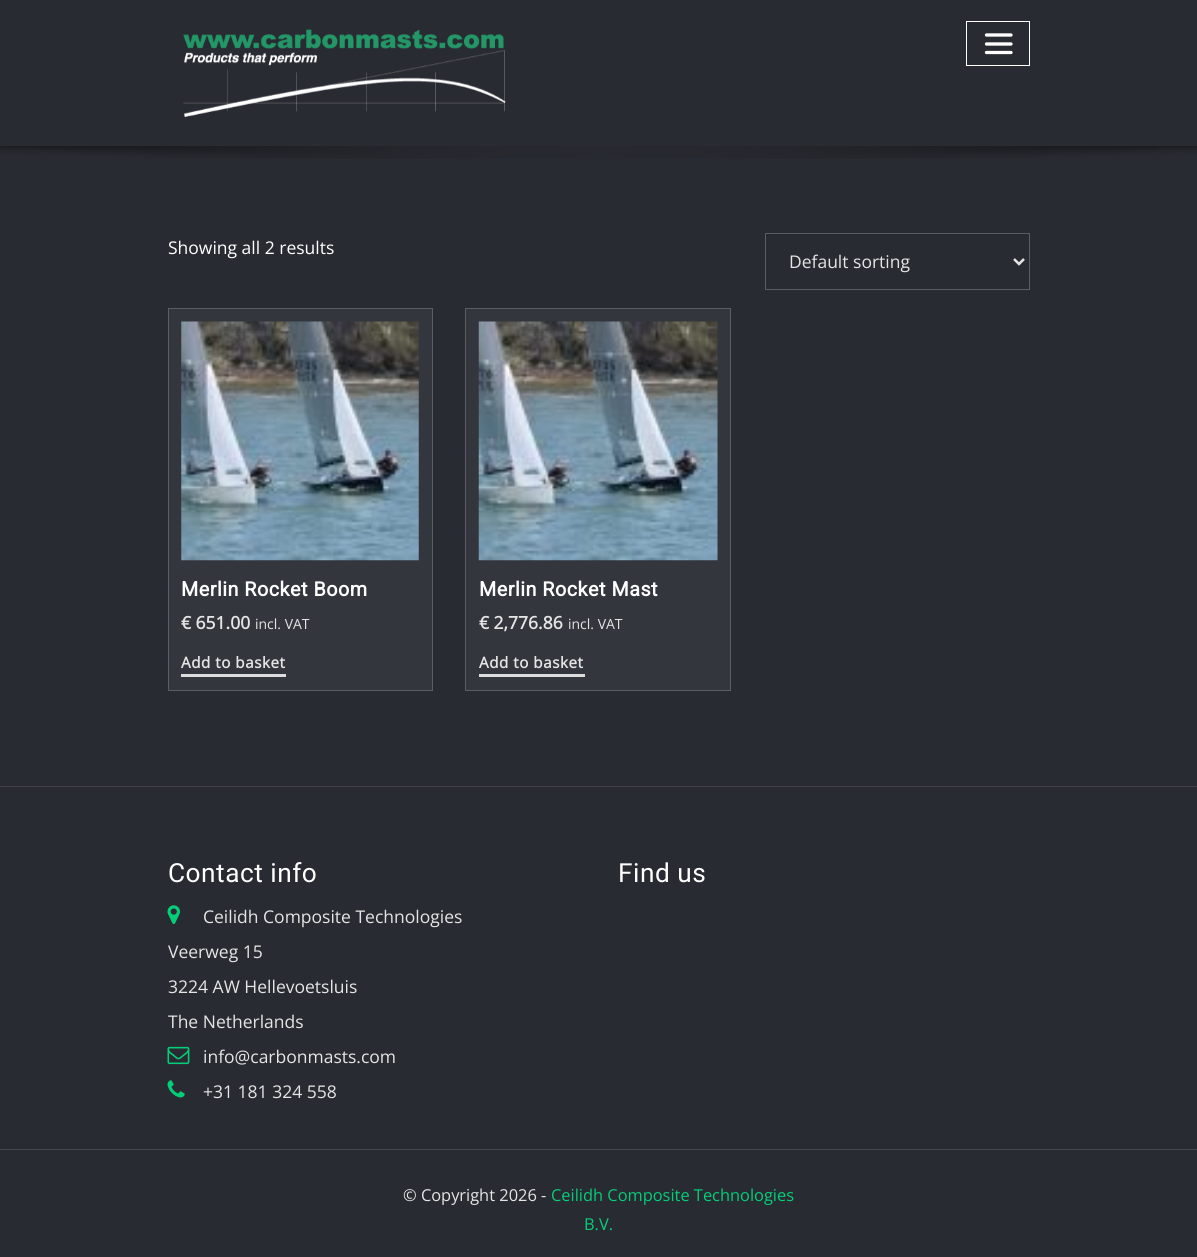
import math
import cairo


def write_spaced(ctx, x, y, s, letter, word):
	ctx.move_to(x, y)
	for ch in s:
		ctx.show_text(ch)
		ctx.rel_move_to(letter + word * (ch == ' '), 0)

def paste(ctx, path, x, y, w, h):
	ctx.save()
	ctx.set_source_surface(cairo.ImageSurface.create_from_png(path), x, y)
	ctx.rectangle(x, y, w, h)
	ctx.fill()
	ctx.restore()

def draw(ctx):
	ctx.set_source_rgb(0.161, 0.169, 0.196)
	ctx.paint()
	paste(ctx, 'media/1.png', 183, 29, 323, 88)
	ctx.rectangle(966.5, 21.5, 63, 44)
	ctx.set_source_rgb(1, 1, 1)
	ctx.set_line_width(1)
	ctx.stroke()
	ctx.new_path()
	ctx.move_to(986.5, 35)
	ctx.line_to(1011, 35)
	ctx.move_to(986.5, 44)
	ctx.line_to(1011, 44)
	ctx.move_to(986.5, 52.5)
	ctx.line_to(1011, 52.5)
	ctx.set_line_width(3.3)
	ctx.set_line_cap(cairo.LINE_CAP_ROUND)
	ctx.stroke()
	paste(ctx, 'media/2.png', 0, 146, 1197, 13)
	ctx.set_source_rgb(0.259, 0.259, 0.259)
	ctx.rectangle(0, 786, 1197, 1)
	ctx.fill()
	ctx.select_font_face('Open Sans')
	ctx.set_font_size(17.5)
	ctx.set_source_rgb(1, 1, 1)
	ctx.move_to(168, 254)
	ctx.show_text('Showing all 2 results')
	ctx.set_source_rgb(0.149, 0.157, 0.18)
	ctx.rectangle(766, 234, 263, 1)
	ctx.fill()
	ctx.rectangle(765.5, 233.5, 264, 56)
	ctx.set_source_rgb(0.357, 0.365, 0.392)
	ctx.set_line_width(1)
	ctx.set_line_cap(cairo.LINE_CAP_BUTT)
	ctx.stroke()
	ctx.new_path()
	ctx.move_to(1014, 259)
	ctx.line_to(1019, 264)
	ctx.line_to(1024, 259)
	ctx.set_source_rgb(0.898, 0.898, 0.898)
	ctx.set_line_width(2.5)
	ctx.stroke()
	ctx.move_to(789, 268)
	ctx.show_text('Default sorting')
	ctx.set_source_rgb(0.204, 0.212, 0.243)
	ctx.rectangle(168.5, 308.5, 264, 382)
	ctx.fill_preserve()
	ctx.set_source_rgb(0.357, 0.365, 0.392)
	ctx.set_line_width(1)
	ctx.stroke()
	paste(ctx, 'media/3.png', 181, 321, 238, 240)
	ctx.select_font_face('Roboto', cairo.FONT_SLANT_NORMAL, cairo.FONT_WEIGHT_BOLD)
	ctx.set_font_size(19.75)
	ctx.set_source_rgb(1, 1, 1)
	write_spaced(ctx, 181, 596, 'Merlin Rocket Boom', 0.5, 0)
	ctx.select_font_face('Open Sans', cairo.FONT_SLANT_NORMAL, cairo.FONT_WEIGHT_BOLD)
	ctx.set_font_size(17.5)
	ctx.set_source_rgb(0.898, 0.898, 0.898)
	ctx.move_to(181, 629)
	ctx.show_text('€ 651.00')
	ctx.select_font_face('Open Sans')
	ctx.set_font_size(14)
	ctx.move_to(255, 629)
	ctx.show_text('incl. VAT')
	ctx.set_source_rgb(0.867, 0.867, 0.867)
	ctx.rectangle(181, 674, 105, 3)
	ctx.fill()
	ctx.select_font_face('Open Sans', cairo.FONT_SLANT_NORMAL, cairo.FONT_WEIGHT_BOLD)
	ctx.set_font_size(15.25)
	ctx.set_source_rgb(0.898, 0.898, 0.898)
	write_spaced(ctx, 181, 668, 'Add to basket', 0.5, 0)
	ctx.set_source_rgb(0.204, 0.212, 0.243)
	ctx.rectangle(465.5, 308.5, 265, 382)
	ctx.fill_preserve()
	ctx.set_source_rgb(0.357, 0.365, 0.392)
	ctx.stroke()
	paste(ctx, 'media/4.png', 478, 321, 240, 240)
	ctx.select_font_face('Roboto', cairo.FONT_SLANT_NORMAL, cairo.FONT_WEIGHT_BOLD)
	ctx.set_font_size(19.75)
	ctx.set_source_rgb(1, 1, 1)
	write_spaced(ctx, 479, 596, 'Merlin Rocket Mast', 0.5, 0)
	ctx.select_font_face('Open Sans', cairo.FONT_SLANT_NORMAL, cairo.FONT_WEIGHT_BOLD)
	ctx.set_font_size(17.5)
	ctx.set_source_rgb(0.898, 0.898, 0.898)
	ctx.move_to(479, 629)
	ctx.show_text('€ 2,776.86')
	ctx.select_font_face('Open Sans')
	ctx.set_font_size(14)
	ctx.move_to(568, 629)
	ctx.show_text('incl. VAT')
	ctx.set_source_rgb(0.867, 0.867, 0.867)
	ctx.rectangle(479, 674, 106, 3)
	ctx.fill()
	ctx.select_font_face('Open Sans', cairo.FONT_SLANT_NORMAL, cairo.FONT_WEIGHT_BOLD)
	ctx.set_font_size(15.25)
	ctx.set_source_rgb(0.898, 0.898, 0.898)
	write_spaced(ctx, 479, 668, 'Add to basket', 0.5, 0)
	ctx.select_font_face('Roboto')
	ctx.set_font_size(26.25)
	ctx.set_source_rgb(1, 1, 1)
	write_spaced(ctx, 168, 882, 'Contact info', 0.5, 0)
	paste(ctx, 'media/5.png', 167, 905, 13, 19)
	ctx.select_font_face('Open Sans')
	ctx.set_font_size(17.5)
	ctx.set_source_rgb(0.898, 0.898, 0.898)
	for x, y, s in [
		(203, 923, 'Ceilidh Composite Technologies'),
		(168, 958, 'Veerweg 15'),
		(168, 993, '3224 AW Hellevoetsluis'),
		(168, 1028, 'The Netherlands'),
	]:
		ctx.move_to(x, y)
		ctx.show_text(s)
	paste(ctx, 'media/6.png', 167, 1046, 23, 19)
	ctx.move_to(203, 1063)
	ctx.show_text('info@carbonmasts.com')
	paste(ctx, 'media/7.png', 167, 1080, 18, 18)
	ctx.move_to(203, 1098)
	ctx.show_text('+31 181 324 558')
	ctx.select_font_face('Roboto')
	ctx.set_font_size(26.25)
	ctx.set_source_rgb(1, 1, 1)
	write_spaced(ctx, 618, 882, 'Find us', 0.5, 0)
	ctx.set_source_rgb(0.275, 0.282, 0.306)
	ctx.rectangle(0, 1149, 1197, 1)
	ctx.fill()
	ctx.select_font_face('Open Sans')
	ctx.set_font_size(16.4)
	ctx.set_source_rgb(0.898, 0.898, 0.898)
	ctx.move_to(403, 1201)
	ctx.show_text('© Copyright 2026 -')
	ctx.set_source_rgb(0.016, 0.808, 0.471)
	ctx.move_to(551, 1201)
	ctx.show_text('Ceilidh Composite Technologies')
	ctx.move_to(584, 1230)
	ctx.show_text('B.V.')


surface = cairo.ImageSurface(cairo.FORMAT_RGB24, 1197, 1257)
ctx = cairo.Context(surface)
options = cairo.FontOptions()
options.set_hint_metrics(cairo.HINT_METRICS_OFF)
options.set_hint_style(cairo.HINT_STYLE_NONE)
ctx.set_font_options(options)
ctx.set_miter_limit(4)
draw(ctx)
surface.write_to_png('image.png')
